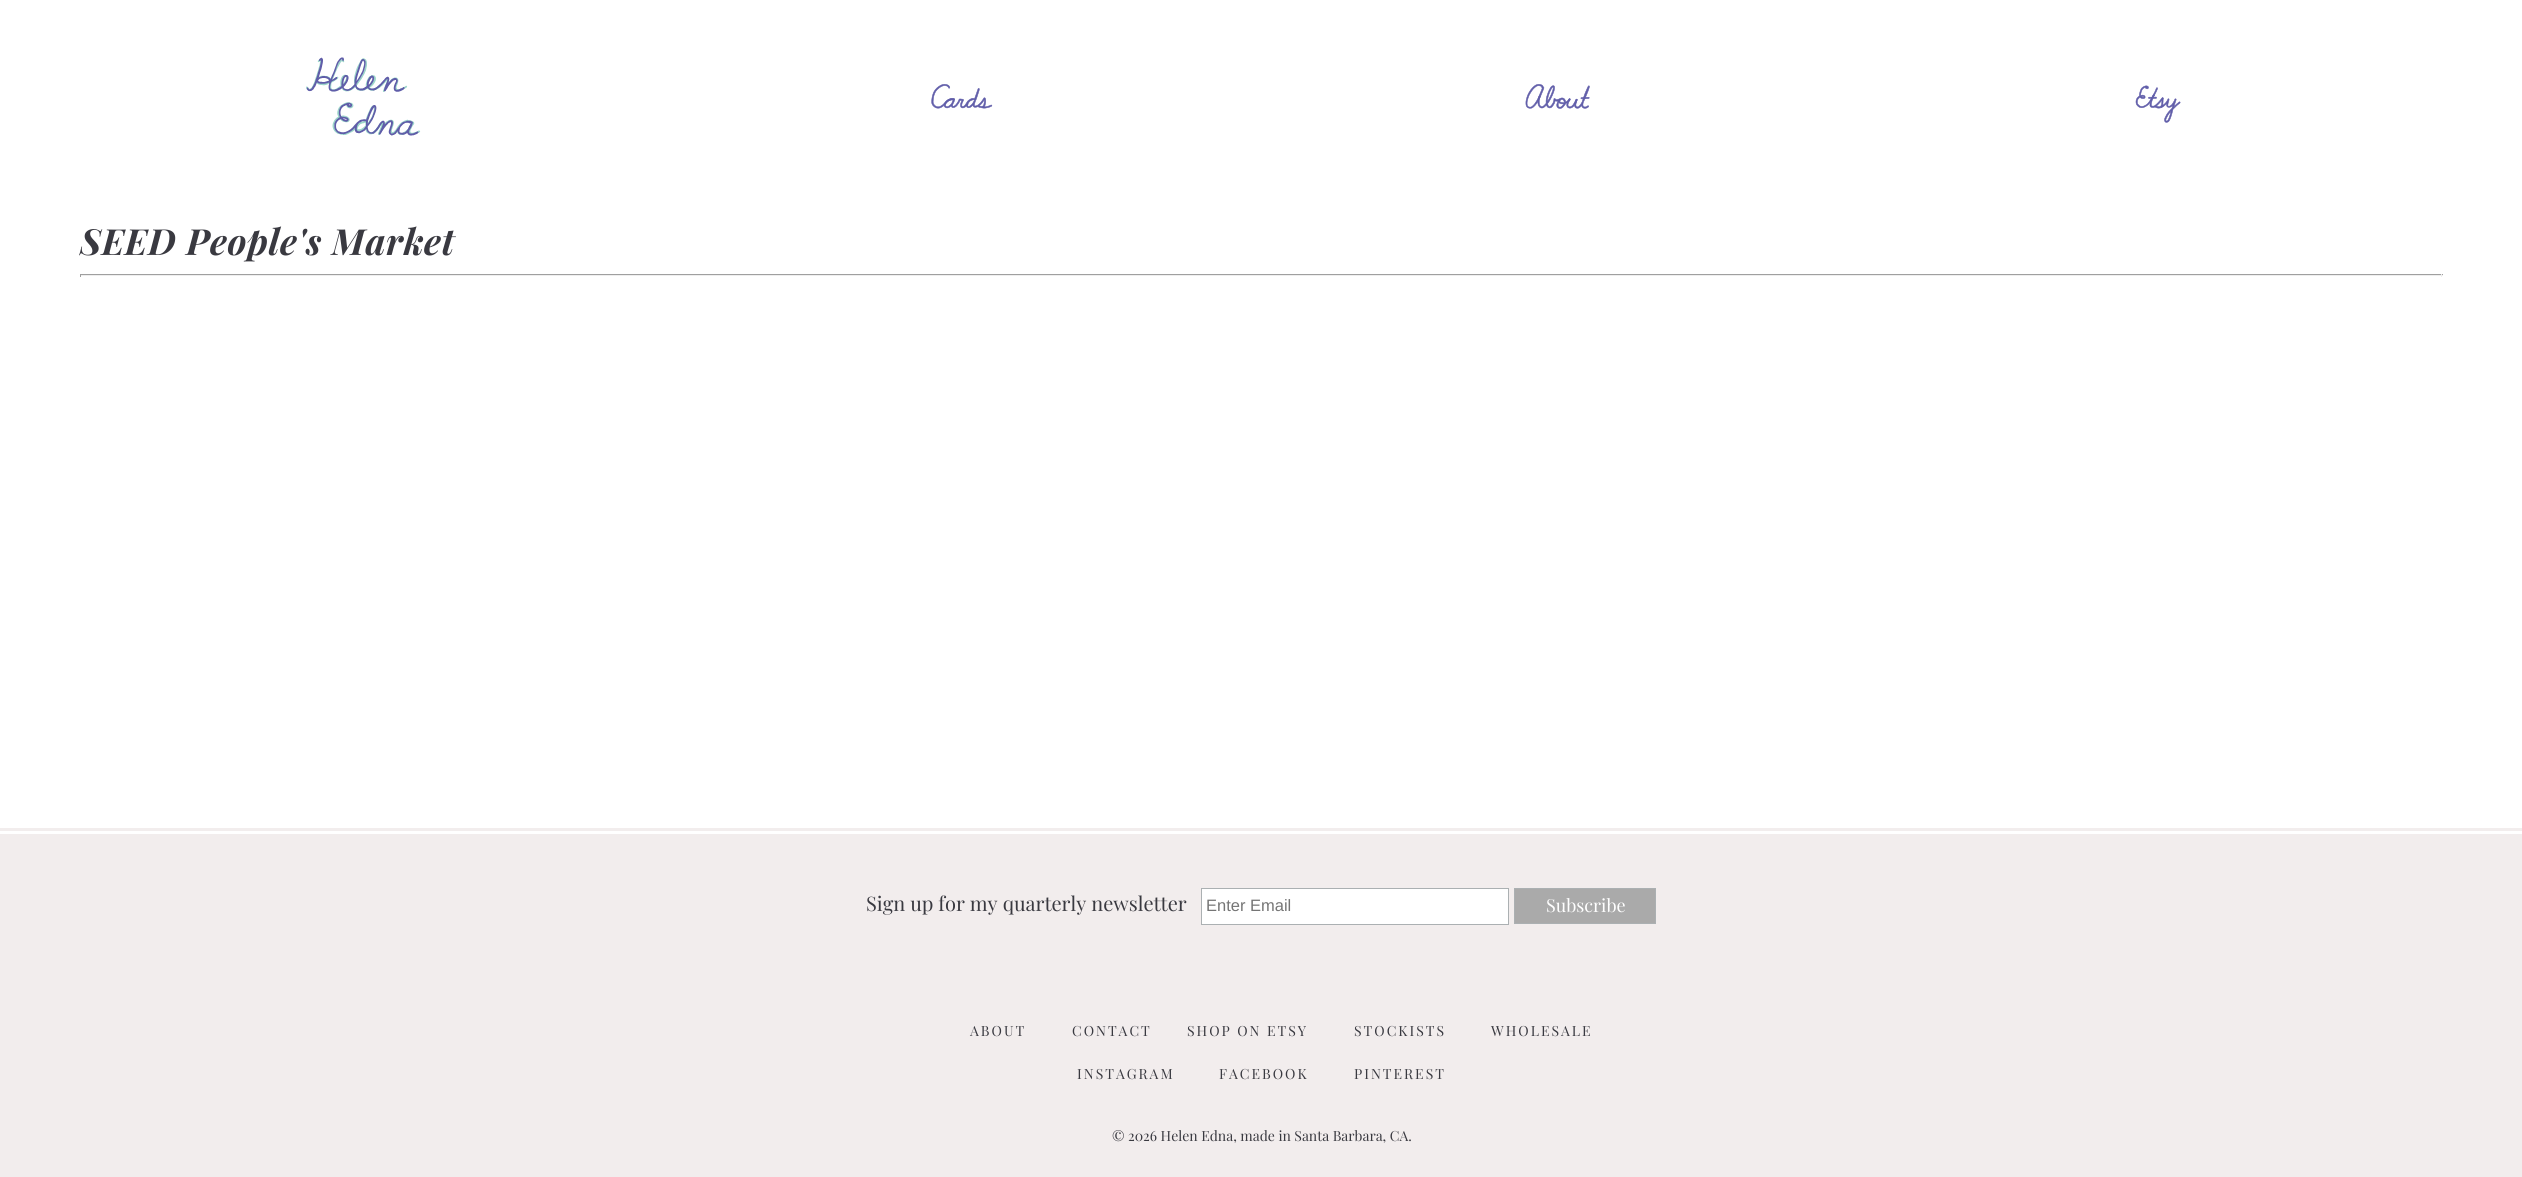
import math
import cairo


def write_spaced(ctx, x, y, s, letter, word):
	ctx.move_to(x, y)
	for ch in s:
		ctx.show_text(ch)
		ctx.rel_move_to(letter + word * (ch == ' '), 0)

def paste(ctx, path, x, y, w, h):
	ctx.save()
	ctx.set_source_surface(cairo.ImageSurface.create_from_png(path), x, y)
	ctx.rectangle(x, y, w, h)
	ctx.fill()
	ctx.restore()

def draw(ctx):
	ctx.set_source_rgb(1, 1, 1)
	ctx.paint()
	paste(ctx, 'media/1.png', 306, 57, 115, 79)
	paste(ctx, 'media/2.png', 931, 84, 62, 25)
	paste(ctx, 'media/3.png', 1525, 84, 65, 25)
	paste(ctx, 'media/4.png', 2135, 85, 46, 38)
	ctx.select_font_face('Playfair Display', cairo.FONT_SLANT_ITALIC, cairo.FONT_WEIGHT_BOLD)
	ctx.set_font_size(36)
	ctx.set_source_rgb(0.224, 0.224, 0.251)
	write_spaced(ctx, 80, 255, 'SEED People\'s Market', 0.6, 0)
	ctx.set_source_rgb(0.624, 0.624, 0.624)
	ctx.rectangle(80, 274, 2363, 1)
	ctx.fill()
	ctx.set_source_rgb(0.933, 0.933, 0.933)
	ctx.rectangle(2441, 274, 1, 3)
	ctx.rectangle(80, 275, 2363, 1)
	ctx.fill()
	ctx.set_source_rgb(0.624, 0.624, 0.624)
	ctx.rectangle(80, 274, 1, 3)
	ctx.fill()
	ctx.set_source_rgb(0.949, 0.929, 0.929)
	ctx.rectangle(0, 828, 2522, 349)
	ctx.fill()
	ctx.set_source_rgb(1, 1, 1)
	ctx.rectangle(0, 831, 2522, 3)
	ctx.fill()
	ctx.select_font_face('Playfair Display')
	ctx.set_font_size(20)
	ctx.set_source_rgb(0.224, 0.224, 0.251)
	ctx.move_to(866, 911)
	ctx.show_text('Sign up for my quarterly newsletter')
	ctx.set_source_rgb(1, 1, 1)
	ctx.rectangle(1201.5, 888.5, 307, 36)
	ctx.fill_preserve()
	ctx.set_source_rgb(0.671, 0.69, 0.698)
	ctx.set_line_width(1)
	ctx.stroke()
	ctx.select_font_face('Liberation Sans')
	ctx.set_font_size(16.5)
	ctx.set_source_rgb(0.459, 0.459, 0.459)
	ctx.move_to(1206, 911)
	ctx.show_text('Enter Email')
	ctx.set_source_rgb(0.667, 0.667, 0.667)
	ctx.rectangle(1514.5, 888.5, 141, 35)
	ctx.fill_preserve()
	ctx.set_source_rgb(0.671, 0.69, 0.698)
	ctx.stroke()
	ctx.select_font_face('Playfair Display')
	ctx.set_font_size(18)
	ctx.set_source_rgb(1, 1, 1)
	ctx.move_to(1546, 912)
	ctx.show_text('Subscribe')
	ctx.set_font_size(14)
	ctx.set_source_rgb(0.224, 0.224, 0.251)
	for x, y, s in [
		(970, 1036, 'ABOUT'),
		(1072, 1036, 'CONTACT'),
		(1187, 1036, 'SHOP ON ETSY'),
		(1354, 1036, 'STOCKISTS'),
		(1491, 1036, 'WHOLESALE'),
		(1077, 1079, 'INSTAGRAM'),
		(1219, 1079, 'FACEBOOK'),
		(1354, 1079, 'PINTEREST'),
	]:
		write_spaced(ctx, x, y, s, 2, 0)
	ctx.move_to(1112, 1141)
	ctx.show_text('© 2026 Helen Edna, made in Santa Barbara, CA.')


surface = cairo.ImageSurface(cairo.FORMAT_RGB24, 2522, 1177)
ctx = cairo.Context(surface)
options = cairo.FontOptions()
options.set_hint_metrics(cairo.HINT_METRICS_OFF)
options.set_hint_style(cairo.HINT_STYLE_NONE)
ctx.set_font_options(options)
ctx.set_miter_limit(4)
draw(ctx)
surface.write_to_png('image.png')
